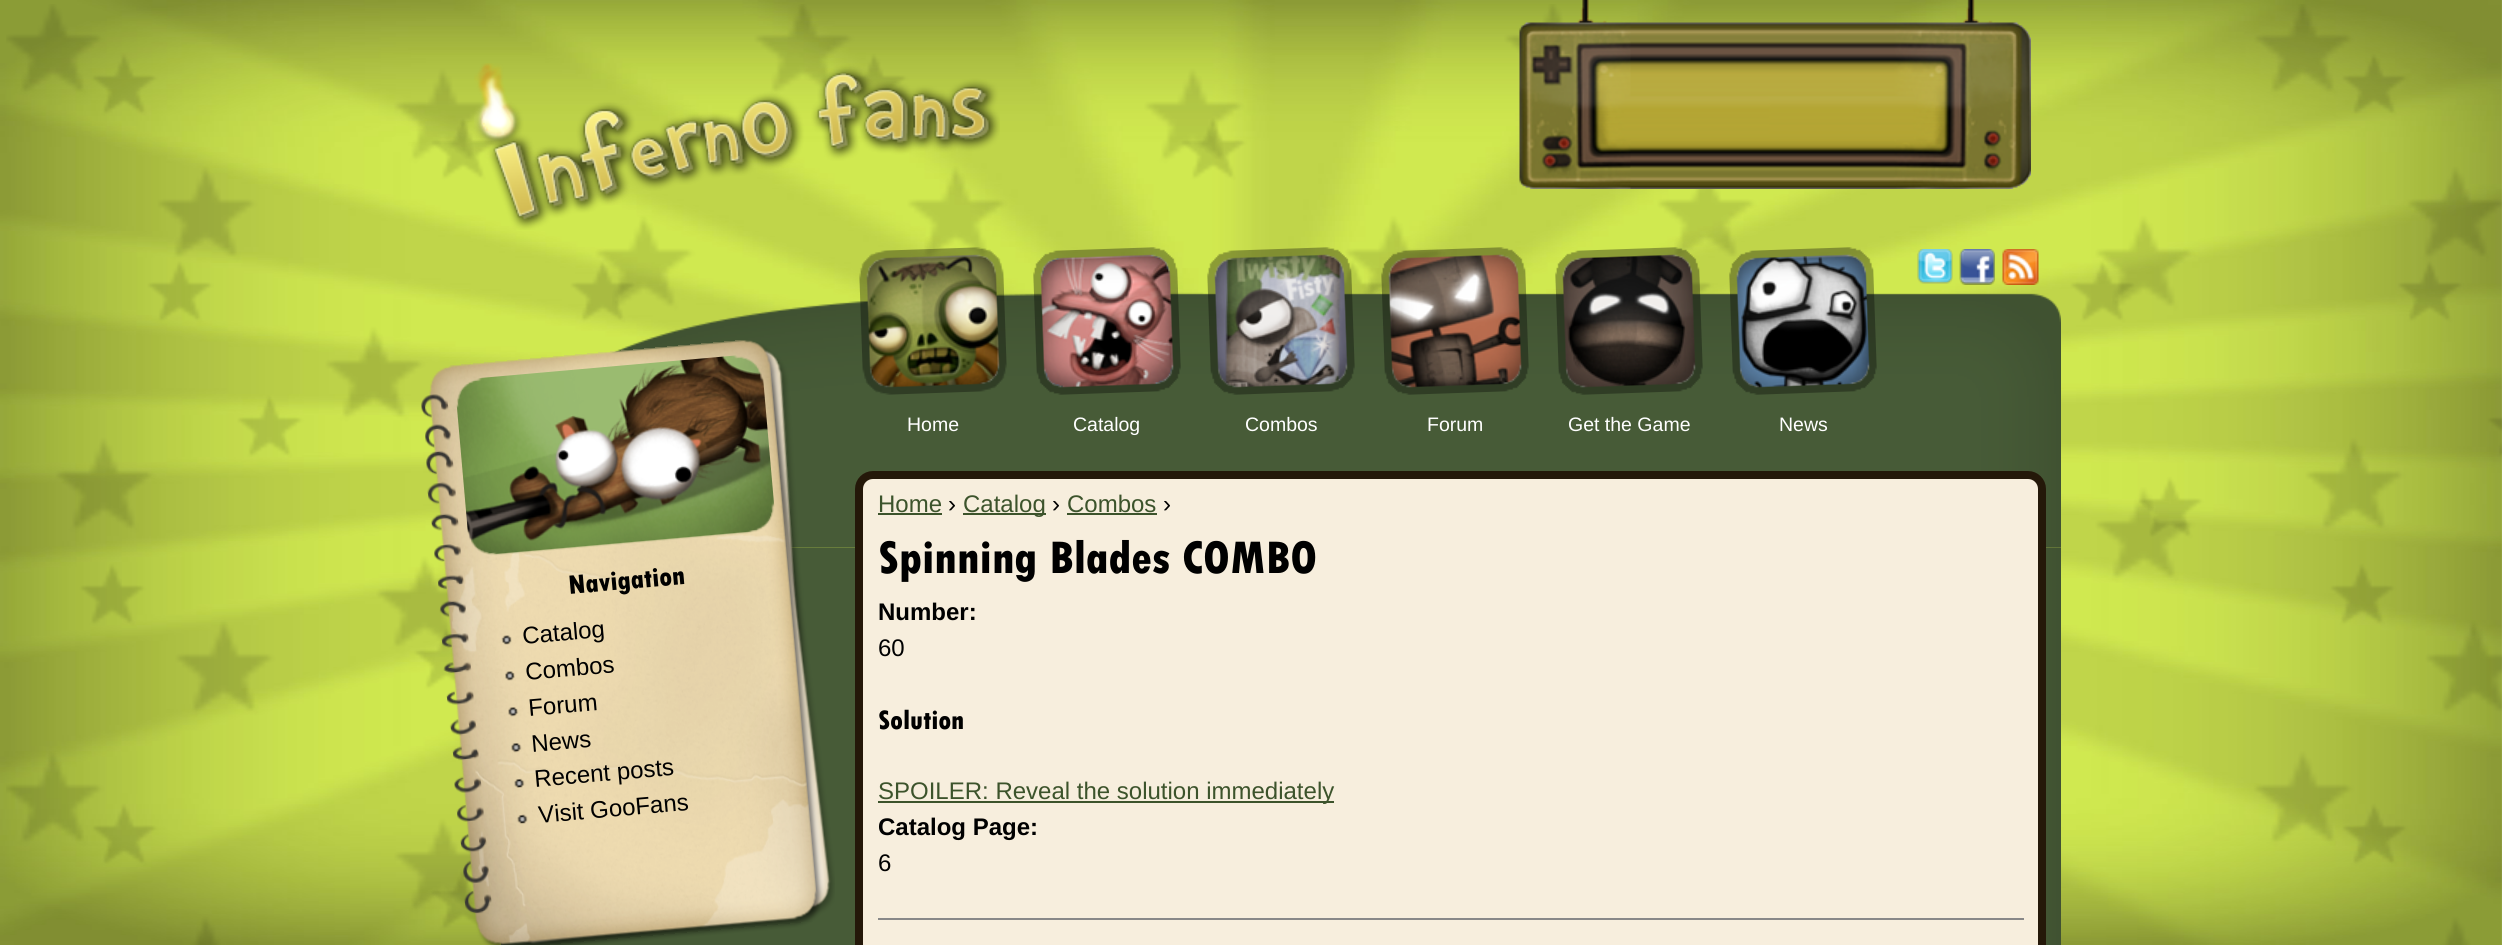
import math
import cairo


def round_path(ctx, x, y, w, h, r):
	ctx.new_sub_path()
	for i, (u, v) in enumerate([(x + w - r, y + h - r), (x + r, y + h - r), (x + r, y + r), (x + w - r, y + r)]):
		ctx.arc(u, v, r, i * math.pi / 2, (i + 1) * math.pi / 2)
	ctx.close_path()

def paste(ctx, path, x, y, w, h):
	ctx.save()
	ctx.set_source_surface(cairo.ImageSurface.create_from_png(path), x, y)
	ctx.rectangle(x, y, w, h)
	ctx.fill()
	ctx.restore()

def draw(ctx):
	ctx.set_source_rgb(1, 1, 1)
	ctx.paint()
	paste(ctx, 'media/1.png', 0, 0, 2502, 945)
	paste(ctx, 'media/2.png', 6, 4, 2496, 941)
	paste(ctx, 'media/3.png', 474, 63, 526, 167)
	paste(ctx, 'media/4.png', 1519, 0, 512, 189)
	paste(ctx, 'media/5.png', 607, 292, 1454, 256)
	paste(ctx, 'media/6.png', 501, 547, 1560, 398)
	paste(ctx, 'media/7.png', 1917, 249, 36, 35)
	paste(ctx, 'media/8.png', 1959, 249, 36, 36)
	paste(ctx, 'media/9.png', 2002, 249, 37, 36)
	paste(ctx, 'media/10.png', 859, 247, 148, 148)
	ctx.select_font_face('Liberation Sans')
	ctx.set_font_size(19.5)
	ctx.set_source_rgb(1, 1, 1)
	ctx.move_to(907, 431)
	ctx.show_text('Home')
	paste(ctx, 'media/11.png', 1033, 247, 148, 148)
	ctx.move_to(1073, 431)
	ctx.show_text('Catalog')
	paste(ctx, 'media/12.png', 1207, 247, 148, 148)
	ctx.move_to(1245, 431)
	ctx.show_text('Combos')
	paste(ctx, 'media/13.png', 1381, 247, 148, 148)
	ctx.move_to(1427, 431)
	ctx.show_text('Forum')
	paste(ctx, 'media/14.png', 1555, 247, 148, 148)
	ctx.move_to(1568, 431)
	ctx.show_text('Get the Game')
	paste(ctx, 'media/15.png', 1729, 247, 148, 148)
	ctx.move_to(1779, 431)
	ctx.show_text('News')
	paste(ctx, 'media/16.png', 421, 340, 414, 605)
	paste(ctx, 'media/17.png', 456, 355, 319, 201)
	ctx.select_font_face('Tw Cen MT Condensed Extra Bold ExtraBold')
	ctx.set_font_size(28)
	ctx.set_source_rgb(0, 0, 0)
	ctx.save()
	ctx.translate(569, 594)
	ctx.rotate(-5 * math.pi / 180)
	ctx.move_to(0, 0)
	ctx.show_text('Navigation')
	ctx.restore()
	paste(ctx, 'media/18.png', 501, 635, 11, 10)
	ctx.select_font_face('Liberation Sans')
	ctx.set_font_size(24)
	ctx.save()
	ctx.translate(523, 644)
	ctx.rotate(-5 * math.pi / 180)
	ctx.move_to(0, 0)
	ctx.show_text('Catalog')
	ctx.restore()
	paste(ctx, 'media/19.png', 505, 671, 10, 10)
	ctx.save()
	ctx.translate(526, 680)
	ctx.rotate(-5 * math.pi / 180)
	ctx.move_to(0, 0)
	ctx.show_text('Combos')
	ctx.restore()
	paste(ctx, 'media/20.png', 508, 707, 11, 10)
	ctx.save()
	ctx.translate(529, 716)
	ctx.rotate(-5 * math.pi / 180)
	ctx.move_to(0, 0)
	ctx.show_text('Forum')
	ctx.restore()
	paste(ctx, 'media/21.png', 511, 743, 11, 10)
	ctx.save()
	ctx.translate(532, 752)
	ctx.rotate(-5 * math.pi / 180)
	ctx.move_to(0, 0)
	ctx.show_text('News')
	ctx.restore()
	paste(ctx, 'media/22.png', 514, 778, 11, 10)
	ctx.save()
	ctx.translate(535, 787)
	ctx.rotate(-5 * math.pi / 180)
	ctx.move_to(0, 0)
	ctx.show_text('Recent posts')
	ctx.restore()
	paste(ctx, 'media/23.png', 517, 814, 11, 10)
	ctx.save()
	ctx.translate(539, 823)
	ctx.rotate(-5 * math.pi / 180)
	ctx.move_to(0, 0)
	ctx.show_text('Visit GooFans')
	ctx.restore()
	ctx.set_source_rgb(0.965, 0.933, 0.867)
	round_path(ctx, 859, 475, 1183, 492, 14)
	ctx.fill_preserve()
	ctx.set_source_rgb(0.141, 0.094, 0.039)
	ctx.set_line_width(8)
	ctx.stroke()
	ctx.set_source_rgb(0.235, 0.325, 0.169)
	ctx.move_to(878, 512)
	ctx.show_text('Home')
	ctx.rectangle(878, 513, 64, 2)
	ctx.fill()
	ctx.set_source_rgb(0, 0, 0)
	ctx.move_to(948, 512)
	ctx.show_text('›')
	ctx.set_source_rgb(0.235, 0.325, 0.169)
	ctx.rectangle(963, 513, 83, 2)
	ctx.fill()
	ctx.move_to(963, 512)
	ctx.show_text('Catalog')
	ctx.set_source_rgb(0, 0, 0)
	ctx.move_to(1052, 512)
	ctx.show_text('›')
	ctx.set_source_rgb(0.235, 0.325, 0.169)
	ctx.move_to(1067, 512)
	ctx.show_text('Combos')
	ctx.rectangle(1067, 513, 90, 2)
	ctx.fill()
	ctx.set_source_rgb(0, 0, 0)
	ctx.move_to(1163, 512)
	ctx.show_text('›')
	ctx.select_font_face('Tw Cen MT Condensed Extra Bold ExtraBold')
	ctx.set_font_size(48)
	ctx.move_to(878, 573)
	ctx.show_text('Spinning Blades COMBO')
	ctx.select_font_face('Liberation Sans', cairo.FONT_SLANT_NORMAL, cairo.FONT_WEIGHT_BOLD)
	ctx.set_font_size(24)
	ctx.move_to(878, 620)
	ctx.show_text('Number:')
	ctx.select_font_face('Liberation Sans')
	ctx.move_to(878, 656)
	ctx.show_text('60')
	ctx.select_font_face('Tw Cen MT Condensed Extra Bold ExtraBold')
	ctx.set_font_size(28)
	ctx.move_to(878, 729)
	ctx.show_text('Solution')
	ctx.set_source_rgb(0.235, 0.325, 0.169)
	ctx.rectangle(878, 801, 456, 2)
	ctx.fill()
	ctx.select_font_face('Liberation Sans')
	ctx.set_font_size(24)
	ctx.move_to(878, 799)
	ctx.show_text('SPOILER: Reveal the solution immediately')
	ctx.select_font_face('Liberation Sans', cairo.FONT_SLANT_NORMAL, cairo.FONT_WEIGHT_BOLD)
	ctx.set_source_rgb(0, 0, 0)
	ctx.move_to(878, 835)
	ctx.show_text('Catalog Page:')
	ctx.select_font_face('Liberation Sans')
	ctx.move_to(878, 871)
	ctx.show_text('6')
	ctx.set_source_rgb(0.533, 0.533, 0.533)
	ctx.rectangle(878, 918, 1146, 2)
	ctx.fill()


surface = cairo.ImageSurface(cairo.FORMAT_RGB24, 2502, 945)
ctx = cairo.Context(surface)
options = cairo.FontOptions()
options.set_hint_metrics(cairo.HINT_METRICS_OFF)
options.set_hint_style(cairo.HINT_STYLE_NONE)
ctx.set_font_options(options)
ctx.set_miter_limit(4)
draw(ctx)
surface.write_to_png('image.png')
